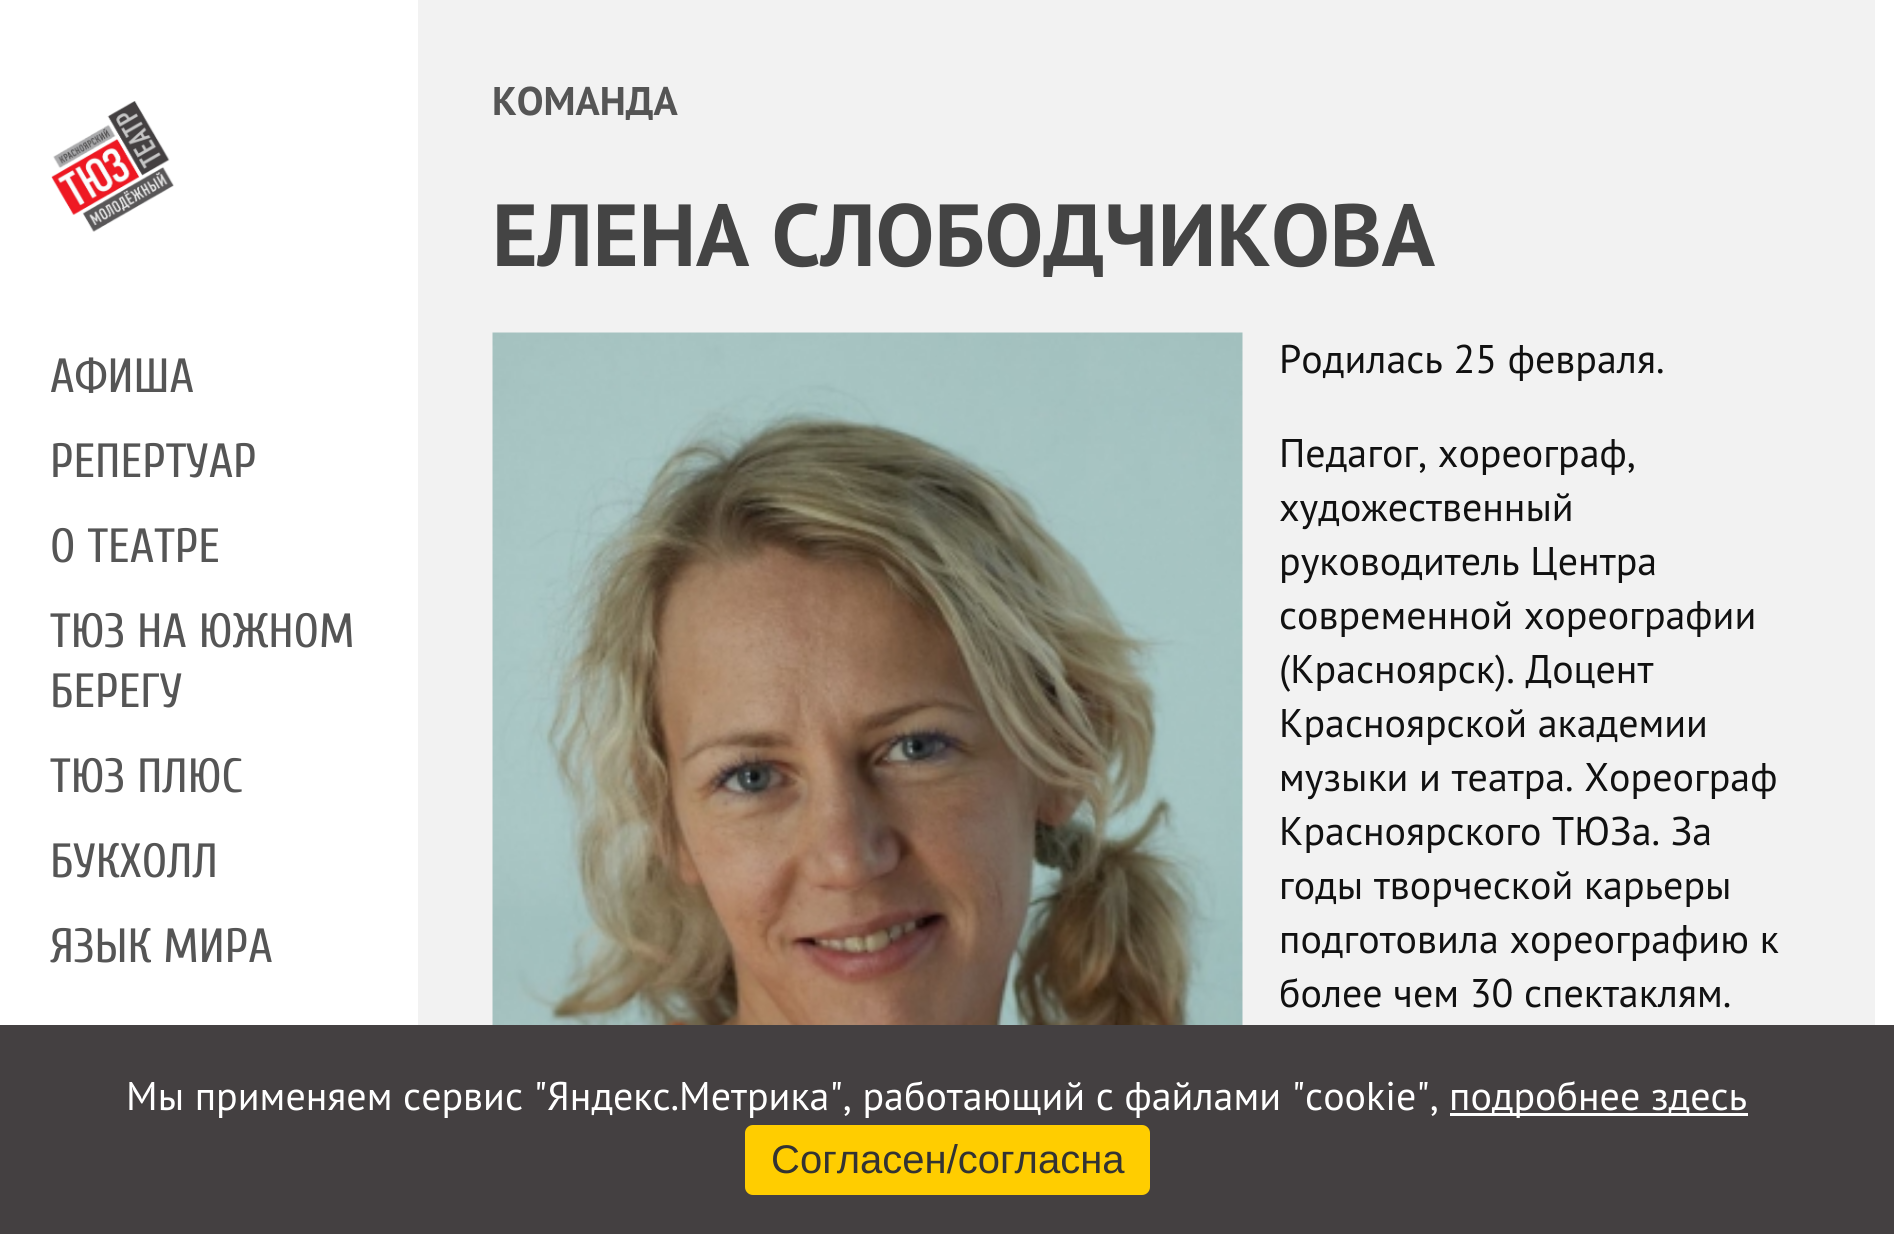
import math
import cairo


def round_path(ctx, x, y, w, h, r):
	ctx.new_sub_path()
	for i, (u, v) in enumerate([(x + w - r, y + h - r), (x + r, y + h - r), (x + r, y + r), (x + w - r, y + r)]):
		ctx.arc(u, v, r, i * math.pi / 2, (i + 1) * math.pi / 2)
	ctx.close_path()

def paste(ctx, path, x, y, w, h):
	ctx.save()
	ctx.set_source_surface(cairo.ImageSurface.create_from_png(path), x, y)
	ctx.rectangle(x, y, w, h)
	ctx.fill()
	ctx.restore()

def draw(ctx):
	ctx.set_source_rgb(1, 1, 1)
	ctx.paint()
	paste(ctx, 'media/1.png', 51, 101, 123, 131)
	ctx.select_font_face('Cuprum')
	ctx.set_font_size(48)
	ctx.set_source_rgb(0.333, 0.333, 0.333)
	for x, y, s in [
		(50, 392, 'АФИША'),
		(50, 477, 'РЕПЕРТУАР'),
		(50, 562, 'О ТЕАТРЕ'),
		(50, 647, 'ТЮЗ НА ЮЖНОМ'),
		(50, 707, 'БЕРЕГУ'),
		(50, 792, 'ТЮЗ ПЛЮС'),
		(50, 877, 'БУКХОЛЛ'),
		(50, 962, 'ЯЗЫК МИРА'),
	]:
		ctx.move_to(x, y)
		ctx.show_text(s)
	ctx.set_source_rgb(0.949, 0.949, 0.949)
	ctx.rectangle(418, 0, 1457, 1025)
	ctx.fill()
	ctx.select_font_face('PT Sans', cairo.FONT_SLANT_NORMAL, cairo.FONT_WEIGHT_BOLD)
	ctx.set_font_size(40)
	ctx.set_source_rgb(0.333, 0.333, 0.333)
	ctx.move_to(492, 115)
	ctx.show_text('КОМАНДА')
	ctx.set_font_size(88)
	ctx.set_source_rgb(0.267, 0.267, 0.267)
	ctx.move_to(492, 266)
	ctx.show_text('ЕЛЕНА СЛОБОДЧИКОВА')
	paste(ctx, 'media/2.png', 492, 332, 751, 693)
	ctx.select_font_face('PT Sans')
	ctx.set_font_size(40)
	ctx.set_source_rgb(0.067, 0.067, 0.067)
	for x, y, s in [
		(1279, 373, 'Родилась 25 февраля.'),
		(1279, 467, 'Педагог, хореограф,'),
		(1279, 521, 'художественный'),
		(1279, 575, 'руководитель Центра'),
		(1279, 629, 'современной хореографии'),
		(1279, 683, '(Красноярск). Доцент'),
		(1279, 737, 'Красноярской академии'),
		(1279, 791, 'музыки и театра. Хореограф'),
		(1279, 845, 'Красноярского ТЮЗа. За'),
		(1279, 899, 'годы творческой карьеры'),
		(1279, 953, 'подготовила хореографию к'),
		(1279, 1007, 'более чем 30 спектаклям.'),
	]:
		ctx.move_to(x, y)
		ctx.show_text(s)
	ctx.set_source_rgb(0.267, 0.251, 0.255)
	ctx.rectangle(0, 1025, 1894, 209)
	ctx.fill()
	ctx.set_source_rgb(1, 1, 1)
	ctx.move_to(126, 1110)
	ctx.show_text('Мы применяем сервис "Яндекс.Метрика", работающий с файлами "cookie",')
	ctx.rectangle(1450, 1113, 298, 3)
	ctx.fill()
	ctx.move_to(1449, 1110)
	ctx.show_text('подробнее здесь')
	ctx.set_source_rgb(1, 0.804, 0)
	round_path(ctx, 745, 1125, 405, 70, 8)
	ctx.fill()
	ctx.select_font_face('Liberation Sans')
	ctx.set_source_rgb(0.2, 0.2, 0.2)
	ctx.move_to(771, 1173)
	ctx.show_text('Согласен/согласна')


surface = cairo.ImageSurface(cairo.FORMAT_RGB24, 1894, 1234)
ctx = cairo.Context(surface)
options = cairo.FontOptions()
options.set_hint_metrics(cairo.HINT_METRICS_OFF)
options.set_hint_style(cairo.HINT_STYLE_NONE)
ctx.set_font_options(options)
ctx.set_miter_limit(4)
draw(ctx)
surface.write_to_png('image.png')
